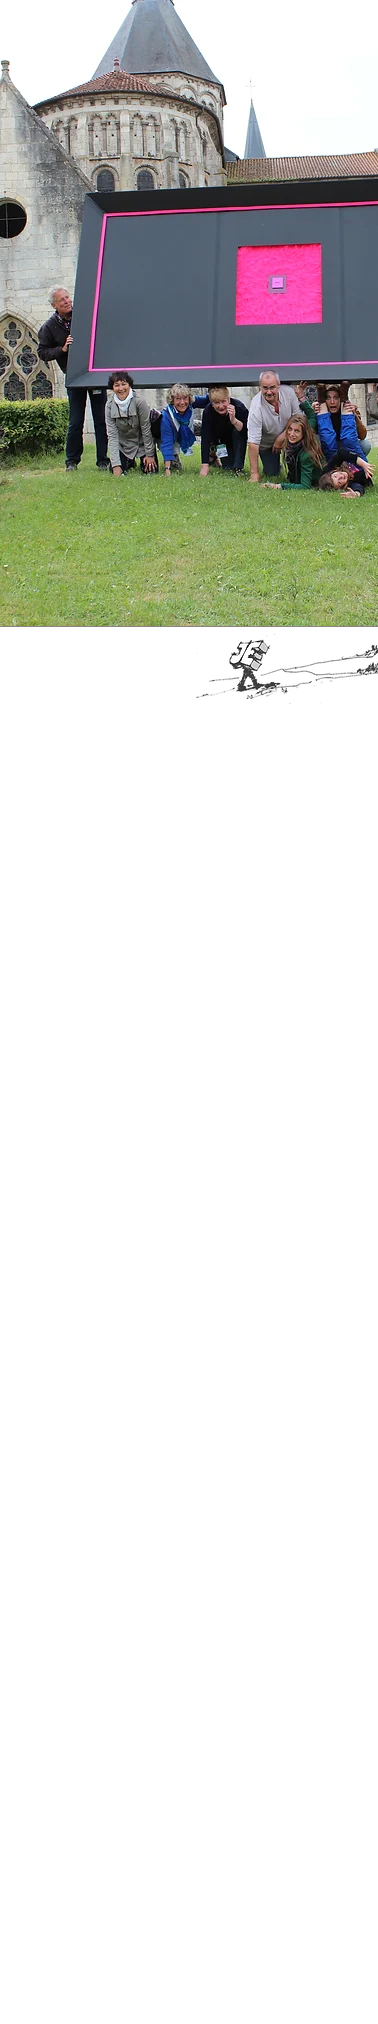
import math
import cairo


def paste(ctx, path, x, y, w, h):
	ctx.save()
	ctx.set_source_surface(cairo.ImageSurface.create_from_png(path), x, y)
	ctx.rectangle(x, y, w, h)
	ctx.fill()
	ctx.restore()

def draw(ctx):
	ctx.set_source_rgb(1, 1, 1)
	ctx.paint()
	paste(ctx, 'media/1.png', 0, 0, 378, 626)
	ctx.set_source_rgb(0.561, 0.514, 0.514)
	ctx.rectangle(0, 626, 378, 1)
	ctx.fill()
	paste(ctx, 'media/2.png', 196, 633, 182, 71)


surface = cairo.ImageSurface(cairo.FORMAT_RGB24, 378, 2024)
ctx = cairo.Context(surface)
options = cairo.FontOptions()
options.set_hint_metrics(cairo.HINT_METRICS_OFF)
options.set_hint_style(cairo.HINT_STYLE_NONE)
ctx.set_font_options(options)
ctx.set_miter_limit(4)
draw(ctx)
surface.write_to_png('image.png')
